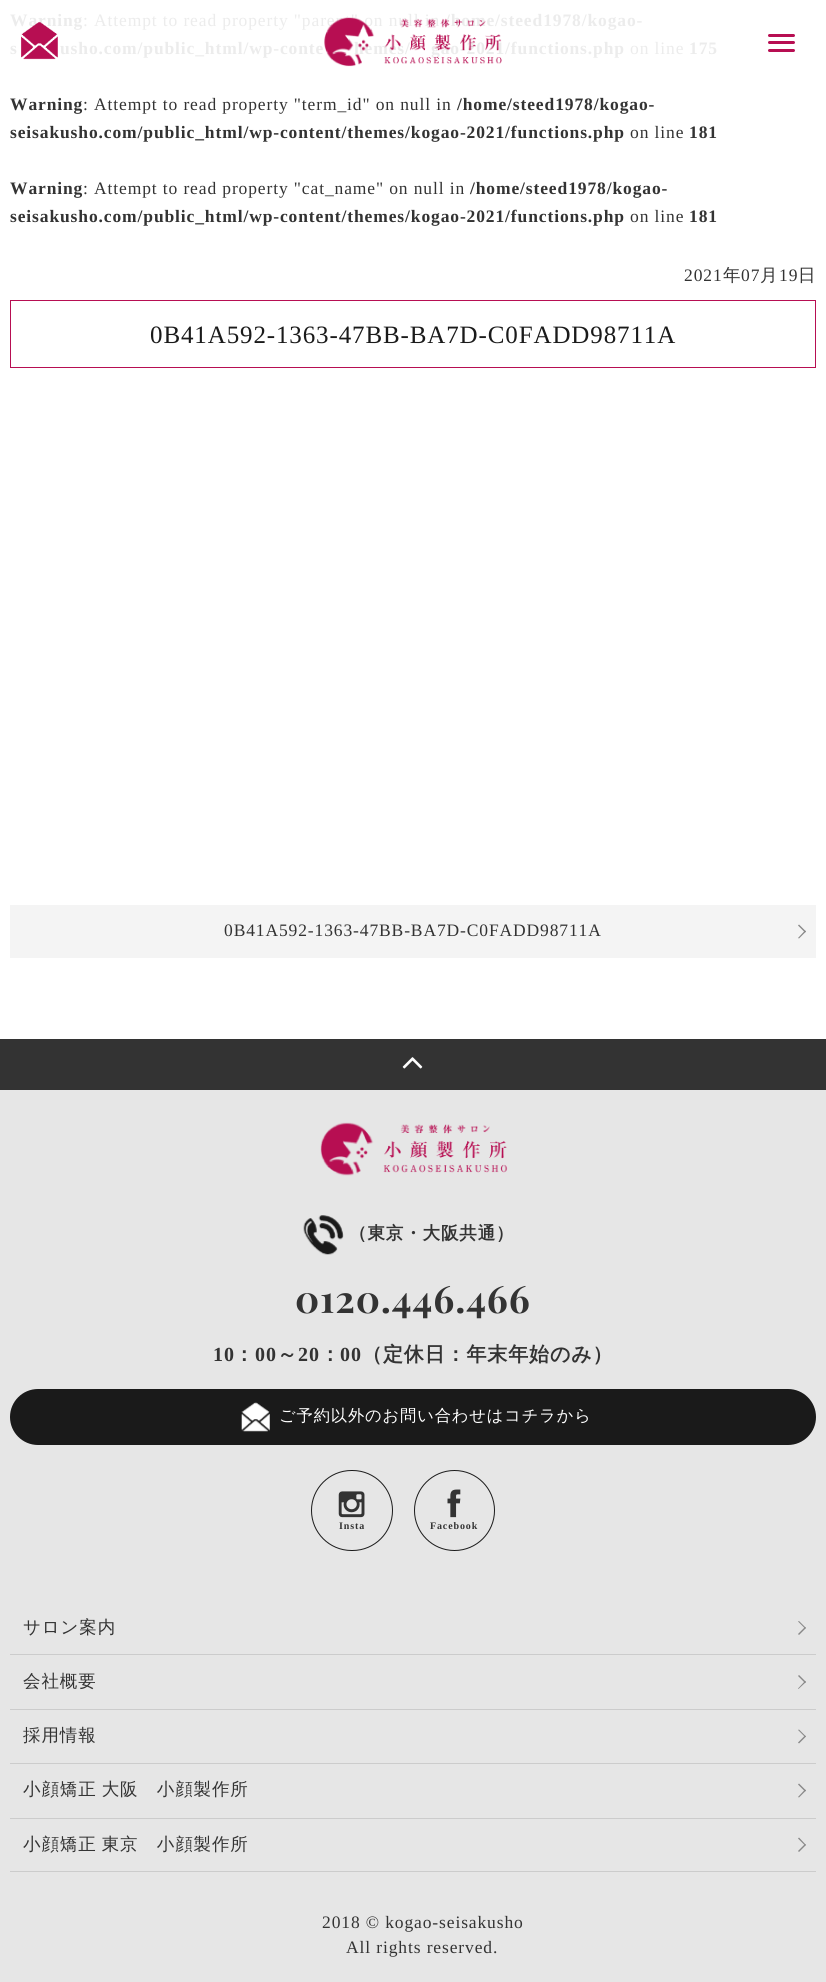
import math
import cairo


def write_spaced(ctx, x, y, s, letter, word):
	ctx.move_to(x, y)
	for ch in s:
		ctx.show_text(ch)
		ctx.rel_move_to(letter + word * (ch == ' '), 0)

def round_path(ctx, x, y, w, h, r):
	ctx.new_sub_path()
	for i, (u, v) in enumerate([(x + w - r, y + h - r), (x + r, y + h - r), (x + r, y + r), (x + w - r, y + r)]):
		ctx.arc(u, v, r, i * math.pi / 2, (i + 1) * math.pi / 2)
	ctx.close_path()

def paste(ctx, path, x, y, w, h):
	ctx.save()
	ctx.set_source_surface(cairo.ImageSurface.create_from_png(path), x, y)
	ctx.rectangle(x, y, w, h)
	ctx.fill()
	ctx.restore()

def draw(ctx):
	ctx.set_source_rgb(1, 1, 1)
	ctx.paint()
	ctx.select_font_face('Liberation Serif', cairo.FONT_SLANT_NORMAL, cairo.FONT_WEIGHT_BOLD)
	ctx.set_font_size(17.5)
	ctx.set_source_rgb(0.922, 0.922, 0.922)
	write_spaced(ctx, 10, 26, 'Warning', 0.88, 0)
	ctx.select_font_face('Liberation Serif')
	write_spaced(ctx, 83, 26, ': Attempt to read property "parent" on null in', 0.88, 0)
	ctx.select_font_face('Liberation Serif', cairo.FONT_SLANT_NORMAL, cairo.FONT_WEIGHT_BOLD)
	for x, y, s in [
		(445, 26, '/home/steed1978/kogao-'),
		(10, 54, 's'),
		(60, 54, 'usho.com/public_html/wp-conte'),
		(354, 54, 'hemes/'),
		(431, 54, 'gao-2021/functions.php'),
	]:
		write_spaced(ctx, x, y, s, 0.88, 0)
	ctx.select_font_face('Liberation Serif')
	write_spaced(ctx, 630, 54, 'on line', 0.88, 0)
	ctx.select_font_face('Liberation Serif', cairo.FONT_SLANT_NORMAL, cairo.FONT_WEIGHT_BOLD)
	write_spaced(ctx, 689, 54, '175', 0.88, 0)
	ctx.set_source_rgb(0.2, 0.2, 0.2)
	write_spaced(ctx, 10, 110, 'Warning', 0.88, 0)
	ctx.select_font_face('Liberation Serif')
	write_spaced(ctx, 83, 110, ': Attempt to read property "term_id" on null in', 0.88, 0)
	ctx.select_font_face('Liberation Serif', cairo.FONT_SLANT_NORMAL, cairo.FONT_WEIGHT_BOLD)
	write_spaced(ctx, 457, 110, '/home/steed1978/kogao-', 0.88, 0)
	write_spaced(ctx, 10, 138, 'seisakusho.com/public_html/wp-content/themes/kogao-2021/functions.php', 0.88, 0)
	ctx.select_font_face('Liberation Serif')
	write_spaced(ctx, 630, 138, 'on line', 0.88, 0)
	ctx.select_font_face('Liberation Serif', cairo.FONT_SLANT_NORMAL, cairo.FONT_WEIGHT_BOLD)
	write_spaced(ctx, 689, 138, '181', 0.88, 0)
	write_spaced(ctx, 10, 194, 'Warning', 0.88, 0)
	ctx.select_font_face('Liberation Serif')
	write_spaced(ctx, 83, 194, ': Attempt to read property "cat_name" on null in', 0.88, 0)
	ctx.select_font_face('Liberation Serif', cairo.FONT_SLANT_NORMAL, cairo.FONT_WEIGHT_BOLD)
	write_spaced(ctx, 470, 194, '/home/steed1978/kogao-', 0.88, 0)
	write_spaced(ctx, 10, 222, 'seisakusho.com/public_html/wp-content/themes/kogao-2021/functions.php', 0.88, 0)
	ctx.select_font_face('Liberation Serif')
	write_spaced(ctx, 630, 222, 'on line', 0.88, 0)
	ctx.select_font_face('Liberation Serif', cairo.FONT_SLANT_NORMAL, cairo.FONT_WEIGHT_BOLD)
	write_spaced(ctx, 689, 222, '181', 0.88, 0)
	ctx.select_font_face('Liberation Serif')
	write_spaced(ctx, 684, 281, '2021', 0.88, 0)
	ctx.select_font_face('WenQuanYi Zen Hei Medium')
	write_spaced(ctx, 723, 281, '年', 0.88, 0)
	ctx.select_font_face('Liberation Serif')
	write_spaced(ctx, 741, 281, '07', 0.88, 0)
	ctx.select_font_face('WenQuanYi Zen Hei Medium')
	write_spaced(ctx, 760, 281, '月', 0.88, 0)
	ctx.select_font_face('Liberation Serif')
	write_spaced(ctx, 779, 281, '19', 0.88, 0)
	ctx.select_font_face('WenQuanYi Zen Hei Medium')
	write_spaced(ctx, 798, 281, '日', 0.88, 0)
	ctx.rectangle(10.5, 300.5, 805, 67)
	ctx.set_source_rgb(0.718, 0.055, 0.322)
	ctx.set_line_width(1)
	ctx.stroke()
	ctx.select_font_face('Liberation Serif')
	ctx.set_font_size(25)
	ctx.set_source_rgb(0.102, 0.102, 0.102)
	write_spaced(ctx, 150, 343, '0B41A592-1363-47BB-BA7D-C0FADD98711A', 0.88, 0)
	ctx.set_source_rgb(0.957, 0.957, 0.957)
	ctx.rectangle(10, 905, 806, 53)
	ctx.fill()
	ctx.set_font_size(17.5)
	ctx.set_source_rgb(0.2, 0.2, 0.2)
	write_spaced(ctx, 224, 936, '0B41A592-1363-47BB-BA7D-C0FADD98711A', 0.88, 0)
	ctx.set_source_rgb(0.533, 0.533, 0.533)
	ctx.new_path()
	ctx.move_to(799, 924.5)
	ctx.line_to(806, 931.5)
	ctx.line_to(805, 932.5)
	ctx.line_to(798, 925.5)
	ctx.close_path()
	ctx.fill()
	ctx.new_path()
	ctx.move_to(805, 930.5)
	ctx.line_to(806, 931.5)
	ctx.line_to(799, 938.5)
	ctx.line_to(798, 938)
	ctx.close_path()
	ctx.fill()
	paste(ctx, 'media/1.png', 21, 22, 37, 38)
	paste(ctx, 'media/2.png', 324, 17, 178, 50)
	ctx.set_source_rgb(0.718, 0.055, 0.322)
	round_path(ctx, 768, 34, 27, 3, 1.5)
	ctx.fill()
	round_path(ctx, 768, 41, 27, 3, 1.5)
	ctx.fill()
	round_path(ctx, 768, 49, 27, 3, 1.5)
	ctx.fill()
	ctx.set_source_rgb(0.902, 0.902, 0.902)
	ctx.rectangle(0, 1090, 826, 892)
	ctx.fill()
	ctx.set_source_rgb(0.2, 0.2, 0.2)
	ctx.rectangle(0, 1039, 826, 51)
	ctx.fill()
	paste(ctx, 'media/3.png', 402, 1057, 21, 12)
	paste(ctx, 'media/4.png', 320, 1122, 188, 54)
	paste(ctx, 'media/5.png', 303, 1215, 41, 40)
	ctx.select_font_face('WenQuanYi Zen Hei', cairo.FONT_SLANT_NORMAL, cairo.FONT_WEIGHT_BOLD)
	write_spaced(ctx, 349, 1239, '（東京・大阪共通）', 0.88, 0)
	ctx.select_font_face('Playfair Display', cairo.FONT_SLANT_NORMAL, cairo.FONT_WEIGHT_BOLD)
	ctx.set_font_size(37.5)
	write_spaced(ctx, 295, 1313, '0120.446.466', 0.88, 0)
	ctx.select_font_face('Liberation Serif', cairo.FONT_SLANT_NORMAL, cairo.FONT_WEIGHT_BOLD)
	ctx.set_font_size(20)
	write_spaced(ctx, 213, 1361, '10', 0.88, 0)
	ctx.select_font_face('WenQuanYi Zen Hei', cairo.FONT_SLANT_NORMAL, cairo.FONT_WEIGHT_BOLD)
	write_spaced(ctx, 234, 1361, '：', 0.88, 0)
	ctx.select_font_face('Liberation Serif', cairo.FONT_SLANT_NORMAL, cairo.FONT_WEIGHT_BOLD)
	write_spaced(ctx, 255, 1361, '00', 0.88, 0)
	ctx.select_font_face('WenQuanYi Zen Hei', cairo.FONT_SLANT_NORMAL, cairo.FONT_WEIGHT_BOLD)
	write_spaced(ctx, 277, 1361, '～', 0.88, 0)
	ctx.select_font_face('Liberation Serif', cairo.FONT_SLANT_NORMAL, cairo.FONT_WEIGHT_BOLD)
	write_spaced(ctx, 298, 1361, '20', 0.88, 0)
	ctx.select_font_face('WenQuanYi Zen Hei', cairo.FONT_SLANT_NORMAL, cairo.FONT_WEIGHT_BOLD)
	write_spaced(ctx, 320, 1361, '：', 0.88, 0)
	ctx.select_font_face('Liberation Serif', cairo.FONT_SLANT_NORMAL, cairo.FONT_WEIGHT_BOLD)
	write_spaced(ctx, 340, 1361, '00', 0.88, 0)
	ctx.select_font_face('WenQuanYi Zen Hei', cairo.FONT_SLANT_NORMAL, cairo.FONT_WEIGHT_BOLD)
	write_spaced(ctx, 362, 1361, '（定休日：年末年始のみ）', 0.88, 0)
	ctx.set_source_rgb(0.102, 0.102, 0.102)
	round_path(ctx, 10, 1389, 806, 56, 28)
	ctx.fill()
	paste(ctx, 'media/6.png', 241, 1402, 29, 30)
	ctx.select_font_face('WenQuanYi Zen Hei Medium')
	ctx.set_font_size(16.25)
	ctx.set_source_rgb(1, 1, 1)
	write_spaced(ctx, 279, 1421, 'ご予約以外のお問い合わせはコチラから', 0.88, 0)
	round_path(ctx, 311.5, 1470.5, 81, 80, 40)
	ctx.set_source_rgb(0.102, 0.102, 0.102)
	ctx.stroke()
	paste(ctx, 'media/7.png', 338, 1491, 27, 27)
	ctx.select_font_face('Liberation Serif', cairo.FONT_SLANT_NORMAL, cairo.FONT_WEIGHT_BOLD)
	ctx.set_font_size(10)
	ctx.set_source_rgb(0.2, 0.2, 0.2)
	write_spaced(ctx, 339, 1529, 'Insta', 0.88, 0)
	ctx.new_path()
	ctx.arc(454.5, 1510.5, 40, 0, 2 * math.pi)
	ctx.set_source_rgb(0.102, 0.102, 0.102)
	ctx.stroke()
	paste(ctx, 'media/8.png', 447, 1489, 14, 29)
	ctx.set_source_rgb(0.2, 0.2, 0.2)
	write_spaced(ctx, 430, 1529, 'Facebook', 0.88, 0)
	ctx.set_source_rgb(0.8, 0.8, 0.8)
	ctx.rectangle(10, 1654, 806, 1)
	ctx.fill()
	ctx.select_font_face('WenQuanYi Zen Hei Medium')
	ctx.set_font_size(17.5)
	ctx.set_source_rgb(0.2, 0.2, 0.2)
	write_spaced(ctx, 23, 1633, 'サロン案内', 0.88, 0)
	ctx.set_source_rgb(0.533, 0.533, 0.533)
	ctx.new_path()
	ctx.move_to(799, 1621)
	ctx.line_to(806, 1628)
	ctx.line_to(805, 1628.5)
	ctx.line_to(798, 1621.5)
	ctx.close_path()
	ctx.fill()
	ctx.new_path()
	ctx.move_to(805, 1627)
	ctx.line_to(806, 1628)
	ctx.line_to(799, 1635)
	ctx.line_to(798, 1634)
	ctx.close_path()
	ctx.fill()
	ctx.set_source_rgb(0.8, 0.8, 0.8)
	ctx.rectangle(10, 1709, 806, 1)
	ctx.fill()
	ctx.set_source_rgb(0.2, 0.2, 0.2)
	write_spaced(ctx, 23, 1687, '会社概要', 0.88, 0)
	ctx.set_source_rgb(0.533, 0.533, 0.533)
	ctx.new_path()
	ctx.move_to(799, 1675)
	ctx.line_to(806, 1682)
	ctx.line_to(805, 1683)
	ctx.line_to(798, 1676)
	ctx.close_path()
	ctx.fill()
	ctx.new_path()
	ctx.move_to(805, 1681)
	ctx.line_to(806, 1682)
	ctx.line_to(798.5, 1689)
	ctx.line_to(798, 1688.5)
	ctx.close_path()
	ctx.fill()
	ctx.set_source_rgb(0.8, 0.8, 0.8)
	ctx.rectangle(10, 1763, 806, 1)
	ctx.fill()
	ctx.set_source_rgb(0.2, 0.2, 0.2)
	write_spaced(ctx, 23, 1741, '採用情報', 0.88, 0)
	ctx.set_source_rgb(0.533, 0.533, 0.533)
	ctx.new_path()
	ctx.move_to(799, 1729.5)
	ctx.line_to(806, 1736.5)
	ctx.line_to(805, 1737)
	ctx.line_to(798, 1730)
	ctx.close_path()
	ctx.fill()
	ctx.new_path()
	ctx.move_to(805, 1735.5)
	ctx.line_to(806, 1736.5)
	ctx.line_to(799, 1743.5)
	ctx.line_to(798, 1742.5)
	ctx.close_path()
	ctx.fill()
	ctx.set_source_rgb(0.8, 0.8, 0.8)
	ctx.rectangle(10, 1818, 806, 1)
	ctx.fill()
	ctx.set_source_rgb(0.2, 0.2, 0.2)
	write_spaced(ctx, 23, 1795, '小顔矯正 大阪　小顔製作所', 0.88, -1)
	ctx.set_source_rgb(0.533, 0.533, 0.533)
	ctx.new_path()
	ctx.move_to(799, 1783.5)
	ctx.line_to(806, 1790.5)
	ctx.line_to(805, 1791.5)
	ctx.line_to(798, 1784.5)
	ctx.close_path()
	ctx.fill()
	ctx.new_path()
	ctx.move_to(805, 1789.5)
	ctx.line_to(806, 1790.5)
	ctx.line_to(799, 1797.5)
	ctx.line_to(798, 1797)
	ctx.close_path()
	ctx.fill()
	ctx.set_source_rgb(0.8, 0.8, 0.8)
	ctx.rectangle(10, 1871, 806, 1)
	ctx.fill()
	ctx.set_source_rgb(0.2, 0.2, 0.2)
	write_spaced(ctx, 23, 1850, '小顔矯正 東京　小顔製作所', 0.88, -1)
	ctx.set_source_rgb(0.533, 0.533, 0.533)
	ctx.new_path()
	ctx.move_to(799, 1837.5)
	ctx.line_to(806, 1845)
	ctx.line_to(805, 1845.5)
	ctx.line_to(798, 1838.5)
	ctx.close_path()
	ctx.fill()
	ctx.new_path()
	ctx.move_to(805, 1844)
	ctx.line_to(806, 1845)
	ctx.line_to(799, 1852)
	ctx.line_to(798, 1851)
	ctx.close_path()
	ctx.fill()
	ctx.select_font_face('Liberation Serif')
	ctx.set_source_rgb(0.2, 0.2, 0.2)
	write_spaced(ctx, 322, 1928, '2018 © kogao-seisakusho', 0.88, 0)
	write_spaced(ctx, 346, 1953, 'All rights reserved.', 0.88, 0)


surface = cairo.ImageSurface(cairo.FORMAT_RGB24, 826, 1982)
ctx = cairo.Context(surface)
options = cairo.FontOptions()
options.set_hint_metrics(cairo.HINT_METRICS_OFF)
options.set_hint_style(cairo.HINT_STYLE_NONE)
ctx.set_font_options(options)
ctx.set_miter_limit(4)
draw(ctx)
surface.write_to_png('image.png')
